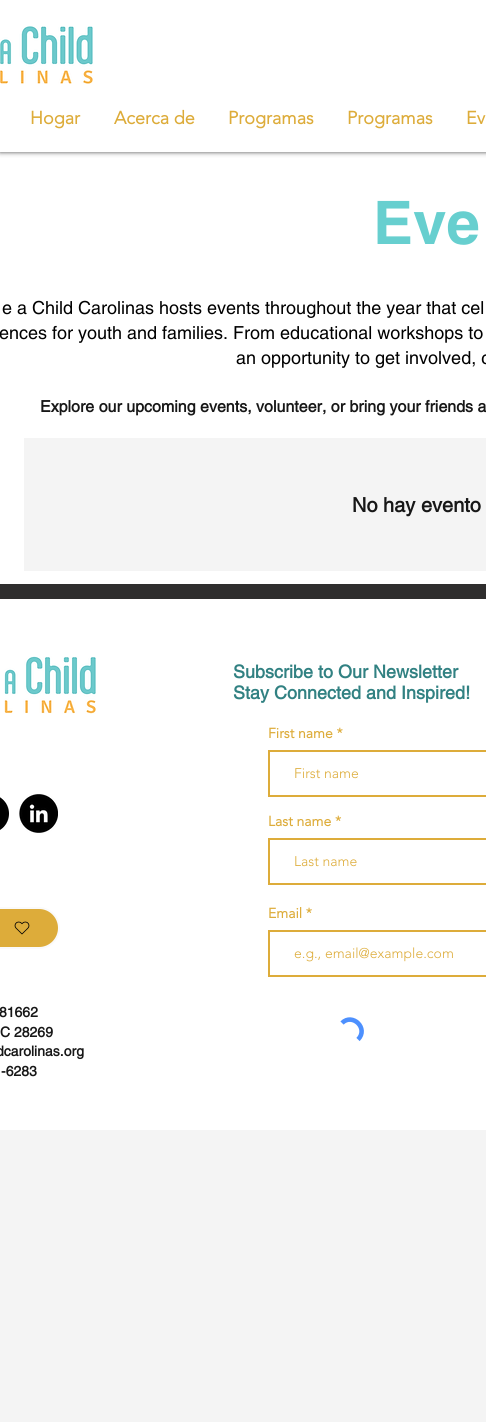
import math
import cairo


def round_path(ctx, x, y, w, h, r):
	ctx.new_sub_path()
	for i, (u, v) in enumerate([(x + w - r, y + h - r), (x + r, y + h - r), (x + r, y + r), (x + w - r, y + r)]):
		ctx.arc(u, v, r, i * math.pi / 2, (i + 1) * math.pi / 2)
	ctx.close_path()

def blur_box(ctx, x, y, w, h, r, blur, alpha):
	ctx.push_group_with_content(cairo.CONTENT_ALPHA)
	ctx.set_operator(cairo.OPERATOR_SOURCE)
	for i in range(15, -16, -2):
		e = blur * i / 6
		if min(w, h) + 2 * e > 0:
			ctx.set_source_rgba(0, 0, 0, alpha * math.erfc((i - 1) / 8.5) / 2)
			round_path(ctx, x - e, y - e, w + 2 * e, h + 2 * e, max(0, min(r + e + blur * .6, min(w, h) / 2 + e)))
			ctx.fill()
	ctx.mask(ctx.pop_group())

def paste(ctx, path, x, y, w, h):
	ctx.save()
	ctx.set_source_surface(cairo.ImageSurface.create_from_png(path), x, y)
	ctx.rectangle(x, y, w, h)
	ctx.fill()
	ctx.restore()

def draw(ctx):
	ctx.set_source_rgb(0.957, 0.957, 0.957)
	ctx.paint()
	ctx.set_source_rgb(1, 1, 1)
	ctx.rectangle(0, 152, 486, 432)
	ctx.fill()
	ctx.set_source_rgb(0, 0, 0)
	blur_box(ctx, 0, 0, 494, 152, 0, 2.5, 0.7)
	ctx.set_source_rgb(1, 1, 1)
	ctx.rectangle(0, 0, 486, 152)
	ctx.fill()
	paste(ctx, 'media/1.png', 0, 26, 93, 58)
	ctx.select_font_face('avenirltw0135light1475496', cairo.FONT_SLANT_NORMAL, cairo.FONT_WEIGHT_BOLD)
	ctx.set_font_size(18)
	ctx.set_source_rgb(0.867, 0.675, 0.227)
	for x, y, s in [
		(30, 124, 'Hogar'),
		(114, 124, 'Acerca de'),
		(228, 124, 'Programas'),
		(347, 124, 'Programas'),
		(466, 124, 'Ev'),
	]:
		ctx.move_to(x, y)
		ctx.show_text(s)
	ctx.select_font_face('helvetica', cairo.FONT_SLANT_NORMAL, cairo.FONT_WEIGHT_BOLD)
	ctx.set_font_size(60)
	ctx.set_source_rgb(0.404, 0.812, 0.812)
	ctx.move_to(373, 244)
	ctx.show_text('Eve')
	ctx.select_font_face('helvetica')
	ctx.set_font_size(18)
	ctx.set_source_rgb(0, 0, 0)
	for x, y, s in [
		(2, 314, 'e a Child Carolinas hosts events throughout the year that cel'),
		(-1, 339, 'ences for youth and families. From educational workshops to'),
		(236, 364, 'an opportunity to get involved, c'),
	]:
		ctx.move_to(x, y)
		ctx.show_text(s)
	ctx.select_font_face('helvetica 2', cairo.FONT_SLANT_NORMAL, cairo.FONT_WEIGHT_BOLD)
	ctx.set_font_size(16)
	ctx.set_source_rgb(0.09, 0.09, 0.09)
	ctx.move_to(40, 412)
	ctx.show_text('Explore our upcoming events, volunteer, or bring your friends a')
	ctx.set_source_rgb(0.957, 0.957, 0.957)
	ctx.rectangle(24, 438, 462, 133)
	ctx.fill()
	ctx.set_font_size(20)
	ctx.set_source_rgb(0.09, 0.09, 0.09)
	ctx.move_to(352, 512)
	ctx.show_text('No hay evento')
	ctx.set_source_rgb(0.184, 0.18, 0.18)
	ctx.rectangle(0, 584, 486, 15)
	ctx.fill()
	ctx.set_source_rgb(1, 1, 1)
	ctx.rectangle(0, 599, 486, 531)
	ctx.fill()
	paste(ctx, 'media/2.png', 4, 656, 92, 58)
	ctx.set_font_size(18)
	ctx.set_source_rgb(0.192, 0.506, 0.51)
	ctx.move_to(233, 678)
	ctx.show_text('Subscribe to Our Newsletter')
	ctx.move_to(233, 699)
	ctx.show_text('Stay Connected and Inspired!')
	ctx.select_font_face('avenirltw0135light1475496', cairo.FONT_SLANT_NORMAL, cairo.FONT_WEIGHT_BOLD)
	ctx.set_font_size(14)
	ctx.set_source_rgb(0.867, 0.675, 0.227)
	ctx.move_to(268, 738)
	ctx.show_text('First name *')
	ctx.rectangle(269, 751, 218, 45)
	ctx.stroke()
	ctx.select_font_face('avenirltw0135light1475496 Light')
	ctx.move_to(294, 778)
	ctx.show_text('First name')
	ctx.select_font_face('avenirltw0135light1475496', cairo.FONT_SLANT_NORMAL, cairo.FONT_WEIGHT_BOLD)
	ctx.move_to(268, 826)
	ctx.show_text('Last name *')
	ctx.rectangle(269, 839, 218, 45)
	ctx.stroke()
	ctx.select_font_face('avenirltw0135light1475496 Light')
	ctx.move_to(294, 866)
	ctx.show_text('Last name')
	ctx.select_font_face('avenirltw0135light1475496', cairo.FONT_SLANT_NORMAL, cairo.FONT_WEIGHT_BOLD)
	ctx.move_to(268, 918)
	ctx.show_text('Email *')
	ctx.rectangle(269, 931, 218, 45)
	ctx.stroke()
	ctx.select_font_face('avenirltw0135light1475496 Light')
	ctx.move_to(294, 958)
	ctx.show_text('e.g., email@example.com')
	ctx.new_path()
	ctx.move_to(342, 1023)
	ctx.curve_to(352.5, 1012.5, 369, 1028.5, 358, 1039.5)
	ctx.set_source_rgb(0.302, 0.565, 0.996)
	ctx.set_line_width(4.6)
	ctx.stroke()
	paste(ctx, 'media/3.png', 0, 797, 9, 33)
	paste(ctx, 'media/4.png', 19, 794, 39, 39)
	ctx.set_source_rgb(0.867, 0.675, 0.227)
	round_path(ctx, -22, 908, 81, 40, 20)
	ctx.fill_preserve()
	ctx.set_source_rgb(0.98, 0.98, 0.98)
	ctx.set_line_width(2)
	ctx.stroke()
	paste(ctx, 'media/5.png', 14, 921, 16, 14)
	ctx.select_font_face('helvetica 2', cairo.FONT_SLANT_NORMAL, cairo.FONT_WEIGHT_BOLD)
	ctx.set_source_rgb(0.09, 0.09, 0.09)
	for x, y, s in [
		(-1, 1017, '81662'),
		(0, 1037, 'C 28269'),
		(-4, 1056, 'dcarolinas.org'),
		(1, 1076, '-6283'),
	]:
		ctx.move_to(x, y)
		ctx.show_text(s)


surface = cairo.ImageSurface(cairo.FORMAT_RGB24, 486, 1422)
ctx = cairo.Context(surface)
options = cairo.FontOptions()
options.set_hint_metrics(cairo.HINT_METRICS_OFF)
options.set_hint_style(cairo.HINT_STYLE_NONE)
ctx.set_font_options(options)
ctx.set_miter_limit(4)
draw(ctx)
surface.write_to_png('image.png')
